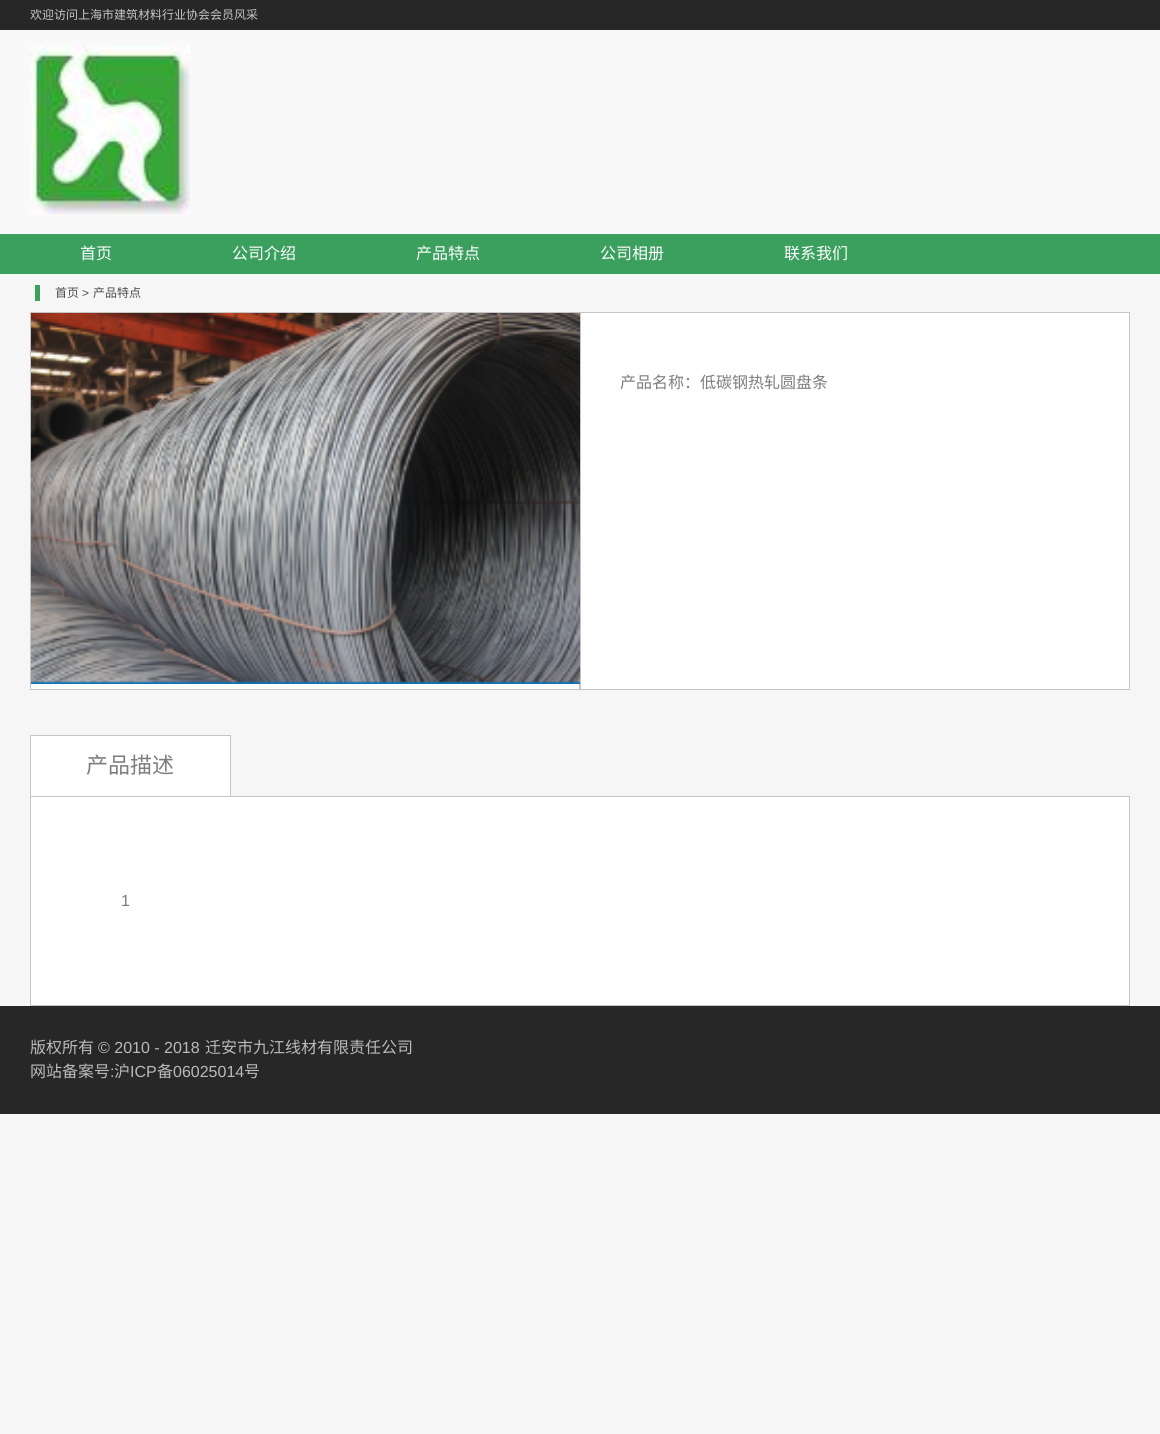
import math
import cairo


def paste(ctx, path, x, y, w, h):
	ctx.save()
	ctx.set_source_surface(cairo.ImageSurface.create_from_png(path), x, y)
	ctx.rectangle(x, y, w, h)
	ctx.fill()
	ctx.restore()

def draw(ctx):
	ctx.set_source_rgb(0.961, 0.961, 0.961)
	ctx.paint()
	ctx.set_source_rgb(0.973, 0.973, 0.973)
	ctx.rectangle(0, 30, 1160, 204)
	ctx.fill()
	ctx.set_source_rgb(0.153, 0.153, 0.153)
	ctx.rectangle(0, 0, 1160, 30)
	ctx.fill()
	ctx.select_font_face('Noto Sans CJK SC')
	ctx.set_font_size(12)
	ctx.set_source_rgb(0.776, 0.776, 0.776)
	ctx.move_to(30, 19)
	ctx.show_text('欢迎访问上海市建筑材料行业协会会员风采')
	paste(ctx, 'media/1.png', 30, 45, 160, 169)
	ctx.set_source_rgb(0.231, 0.624, 0.369)
	ctx.rectangle(0, 234, 1160, 40)
	ctx.fill()
	ctx.set_font_size(16)
	ctx.set_source_rgb(1, 1, 1)
	for x, y, s in [
		(80, 259, '首页'),
		(232, 259, '公司介绍'),
		(416, 259, '产品特点'),
		(600, 259, '公司相册'),
		(784, 259, '联系我们'),
	]:
		ctx.move_to(x, y)
		ctx.show_text(s)
	ctx.set_source_rgb(0.231, 0.624, 0.369)
	ctx.rectangle(35, 285, 5, 16)
	ctx.fill()
	ctx.set_font_size(12)
	ctx.set_source_rgb(0.298, 0.298, 0.298)
	ctx.move_to(55, 297)
	ctx.show_text('首页')
	ctx.select_font_face('Liberation Sans')
	ctx.move_to(82, 297)
	ctx.show_text('>')
	ctx.select_font_face('Noto Sans CJK SC')
	ctx.move_to(93, 297)
	ctx.show_text('产品特点')
	ctx.set_source_rgb(1, 1, 1)
	ctx.rectangle(31, 313, 1098, 376)
	ctx.fill()
	ctx.set_source_rgb(0.773, 0.773, 0.773)
	ctx.rectangle(579, 312, 2, 378)
	ctx.fill()
	ctx.rectangle(30.5, 312.5, 1099, 377)
	ctx.set_line_width(1)
	ctx.stroke()
	paste(ctx, 'media/2.png', 31, 313, 549, 371)
	ctx.set_font_size(16)
	ctx.set_source_rgb(0.49, 0.49, 0.49)
	ctx.move_to(620, 388)
	ctx.show_text('产品名称：低碳钢热轧圆盘条')
	ctx.set_source_rgb(1, 1, 1)
	ctx.rectangle(31, 736, 199, 60)
	ctx.fill()
	ctx.set_source_rgb(0.773, 0.773, 0.773)
	ctx.rectangle(30, 735, 201, 1)
	ctx.rectangle(230, 735, 1, 61)
	ctx.rectangle(30, 735, 1, 61)
	ctx.fill()
	ctx.set_font_size(22)
	ctx.set_source_rgb(0.49, 0.49, 0.49)
	ctx.move_to(86, 773)
	ctx.show_text('产品描述')
	ctx.set_source_rgb(1, 1, 1)
	ctx.rectangle(30.5, 796.5, 1099, 209)
	ctx.fill_preserve()
	ctx.set_source_rgb(0.773, 0.773, 0.773)
	ctx.stroke()
	ctx.select_font_face('Liberation Sans')
	ctx.set_font_size(16)
	ctx.set_source_rgb(0.49, 0.49, 0.49)
	ctx.move_to(121, 906)
	ctx.show_text('1')
	ctx.set_source_rgb(0.153, 0.153, 0.153)
	ctx.rectangle(0, 1006, 1160, 108)
	ctx.fill()
	ctx.select_font_face('Noto Sans CJK SC')
	ctx.set_source_rgb(0.729, 0.729, 0.729)
	ctx.move_to(30, 1053)
	ctx.show_text('版权所有')
	ctx.select_font_face('Liberation Sans')
	ctx.move_to(98, 1053)
	ctx.show_text('© 2010 - 2018')
	ctx.select_font_face('Noto Sans CJK SC')
	ctx.move_to(205, 1053)
	ctx.show_text('迁安市九江线材有限责任公司')
	ctx.move_to(30, 1077)
	ctx.show_text('网站备案号')
	ctx.select_font_face('Liberation Sans')
	ctx.move_to(110, 1077)
	ctx.show_text(':')
	ctx.select_font_face('Noto Sans CJK SC')
	ctx.move_to(114, 1077)
	ctx.show_text('沪')
	ctx.select_font_face('Liberation Sans')
	ctx.move_to(130, 1077)
	ctx.show_text('ICP')
	ctx.select_font_face('Noto Sans CJK SC')
	ctx.move_to(157, 1077)
	ctx.show_text('备')
	ctx.select_font_face('Liberation Sans')
	ctx.move_to(173, 1077)
	ctx.show_text('06025014')
	ctx.select_font_face('Noto Sans CJK SC')
	ctx.move_to(244, 1077)
	ctx.show_text('号')


surface = cairo.ImageSurface(cairo.FORMAT_RGB24, 1160, 1434)
ctx = cairo.Context(surface)
options = cairo.FontOptions()
options.set_hint_metrics(cairo.HINT_METRICS_OFF)
options.set_hint_style(cairo.HINT_STYLE_NONE)
ctx.set_font_options(options)
ctx.set_miter_limit(4)
draw(ctx)
surface.write_to_png('image.png')
